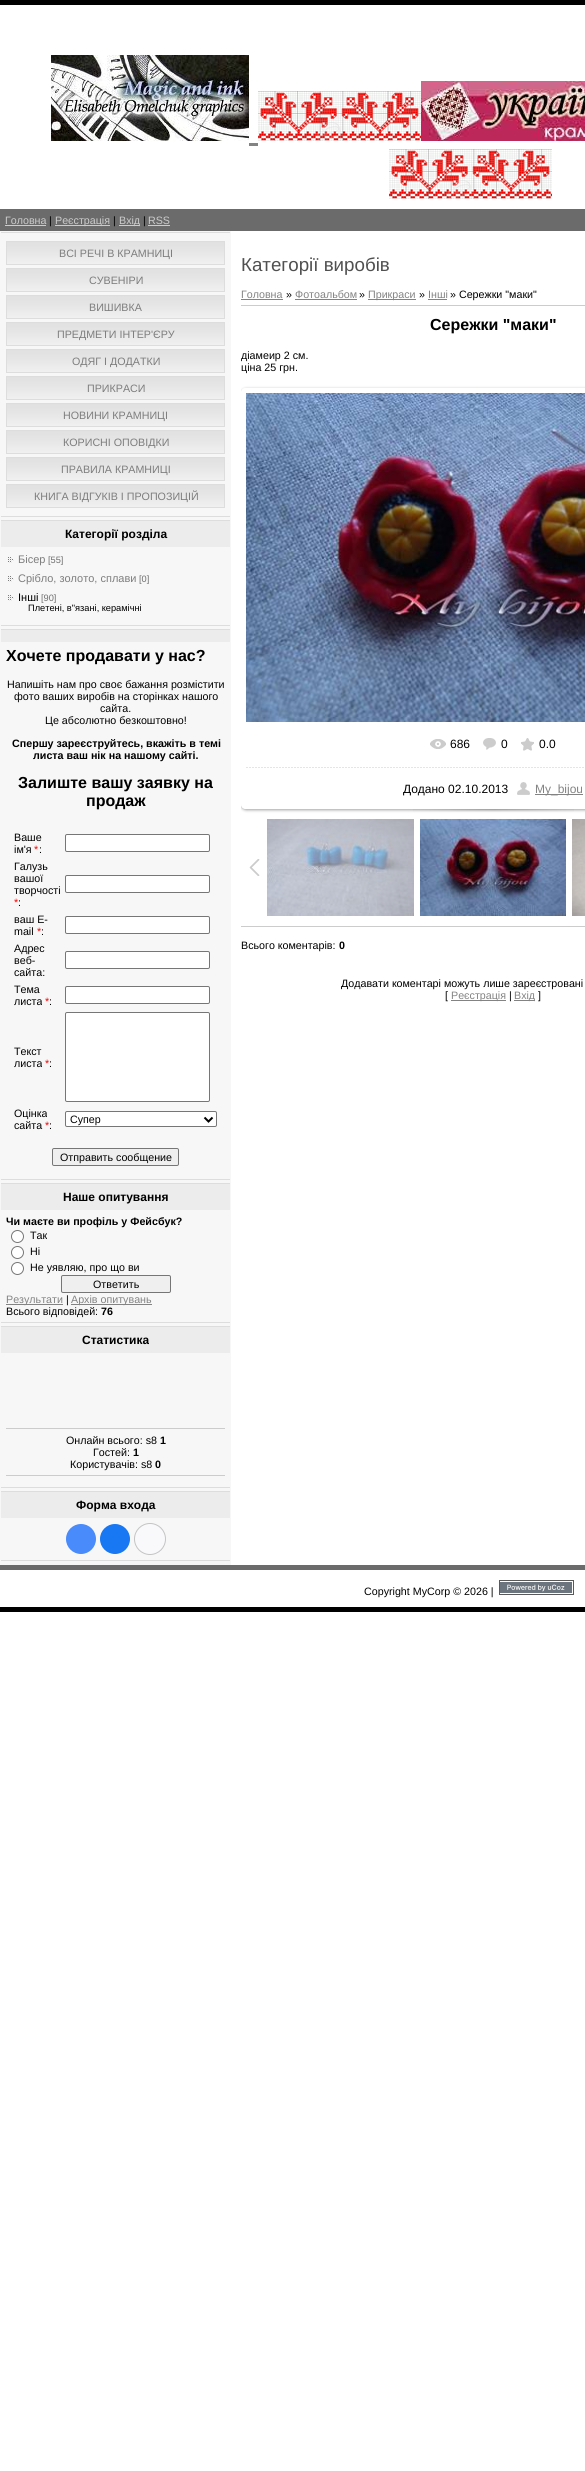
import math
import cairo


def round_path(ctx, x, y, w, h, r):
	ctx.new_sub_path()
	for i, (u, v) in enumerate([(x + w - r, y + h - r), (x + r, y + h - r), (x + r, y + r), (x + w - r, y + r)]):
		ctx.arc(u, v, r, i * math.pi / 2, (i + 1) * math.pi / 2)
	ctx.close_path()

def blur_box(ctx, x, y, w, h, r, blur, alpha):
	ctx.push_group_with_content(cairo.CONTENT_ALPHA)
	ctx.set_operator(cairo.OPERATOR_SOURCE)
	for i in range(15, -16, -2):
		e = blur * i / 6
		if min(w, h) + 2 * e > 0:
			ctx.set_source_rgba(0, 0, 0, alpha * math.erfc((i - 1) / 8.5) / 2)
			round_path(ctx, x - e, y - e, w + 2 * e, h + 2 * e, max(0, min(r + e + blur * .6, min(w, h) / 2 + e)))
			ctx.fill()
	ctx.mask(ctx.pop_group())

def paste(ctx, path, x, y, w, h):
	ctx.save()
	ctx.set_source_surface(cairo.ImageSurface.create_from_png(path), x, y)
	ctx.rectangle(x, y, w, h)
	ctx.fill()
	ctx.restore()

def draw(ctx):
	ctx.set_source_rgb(1, 1, 1)
	ctx.paint()
	ctx.set_source_rgb(0, 0, 0)
	ctx.rectangle(0, 0, 585, 5)
	ctx.fill()
	paste(ctx, 'media/1.png', 51, 55, 198, 86)
	paste(ctx, 'media/2.png', 258, 91, 163, 50)
	paste(ctx, 'media/3.png', 421, 81, 164, 60)
	ctx.set_source_rgb(0.514, 0.514, 0.514)
	ctx.rectangle(249, 143, 9, 3)
	ctx.fill()
	paste(ctx, 'media/2.png', 389, 149, 163, 50)
	ctx.set_source_rgb(0.42, 0.42, 0.42)
	ctx.rectangle(0, 209, 585, 22)
	ctx.fill()
	ctx.select_font_face('Liberation Sans')
	ctx.set_font_size(10.7)
	ctx.set_source_rgb(0.8, 0.8, 0.8)
	ctx.move_to(5, 224)
	ctx.show_text('Головна')
	ctx.rectangle(5, 225, 41, 1)
	ctx.fill()
	ctx.set_source_rgb(0, 0, 0)
	ctx.move_to(49, 224)
	ctx.show_text('|')
	ctx.set_source_rgb(0.8, 0.8, 0.8)
	ctx.rectangle(55, 225, 55, 1)
	ctx.fill()
	ctx.move_to(55, 224)
	ctx.show_text('Реєстрація')
	ctx.set_source_rgb(0, 0, 0)
	ctx.move_to(113, 224)
	ctx.show_text('|')
	ctx.set_source_rgb(0.8, 0.8, 0.8)
	ctx.rectangle(119, 225, 21, 1)
	ctx.fill()
	ctx.move_to(119, 224)
	ctx.show_text('Вхід')
	ctx.set_source_rgb(0, 0, 0)
	ctx.move_to(143, 224)
	ctx.show_text('|')
	ctx.set_source_rgb(0.8, 0.8, 0.8)
	ctx.move_to(148, 224)
	ctx.show_text('RSS')
	ctx.rectangle(148, 225, 22, 1)
	ctx.fill()
	ctx.set_source_rgb(0.965, 0.965, 0.965)
	ctx.rectangle(0, 231, 231, 1334)
	ctx.fill()
	ctx.set_source_rgb(0.867, 0.867, 0.867)
	ctx.rectangle(1, 232, 229, 1)
	ctx.rectangle(1, 516, 229, 1)
	ctx.fill()
	paste(ctx, 'media/4.png', 7, 242, 217, 22)
	ctx.rectangle(6.5, 241.5, 218, 23)
	ctx.set_line_width(1)
	ctx.stroke()
	ctx.set_source_rgb(0.49, 0.49, 0.49)
	ctx.move_to(59, 257)
	ctx.show_text('ВСІ РЕЧІ В КРАМНИЦІ')
	paste(ctx, 'media/4.png', 7, 269, 217, 22)
	ctx.rectangle(6.5, 268.5, 218, 23)
	ctx.set_source_rgb(0.867, 0.867, 0.867)
	ctx.stroke()
	ctx.set_source_rgb(0.49, 0.49, 0.49)
	ctx.move_to(89, 284)
	ctx.show_text('СУВЕНІРИ')
	paste(ctx, 'media/4.png', 7, 296, 217, 22)
	ctx.rectangle(6.5, 295.5, 218, 23)
	ctx.set_source_rgb(0.867, 0.867, 0.867)
	ctx.stroke()
	ctx.set_source_rgb(0.49, 0.49, 0.49)
	ctx.move_to(89, 311)
	ctx.show_text('ВИШИВКА')
	paste(ctx, 'media/4.png', 7, 323, 217, 22)
	ctx.rectangle(6.5, 322.5, 218, 23)
	ctx.set_source_rgb(0.867, 0.867, 0.867)
	ctx.stroke()
	ctx.set_source_rgb(0.49, 0.49, 0.49)
	ctx.move_to(57, 338)
	ctx.show_text('ПРЕДМЕТИ ІНТЕР\'ЄРУ')
	paste(ctx, 'media/4.png', 7, 350, 217, 22)
	ctx.rectangle(6.5, 349.5, 218, 23)
	ctx.set_source_rgb(0.867, 0.867, 0.867)
	ctx.stroke()
	ctx.set_source_rgb(0.49, 0.49, 0.49)
	ctx.move_to(72, 365)
	ctx.show_text('ОДЯГ І ДОДАТКИ')
	paste(ctx, 'media/4.png', 7, 377, 217, 22)
	ctx.rectangle(6.5, 376.5, 218, 23)
	ctx.set_source_rgb(0.867, 0.867, 0.867)
	ctx.stroke()
	ctx.set_source_rgb(0.49, 0.49, 0.49)
	ctx.move_to(87, 392)
	ctx.show_text('ПРИКРАСИ')
	paste(ctx, 'media/4.png', 7, 404, 217, 22)
	ctx.rectangle(6.5, 403.5, 218, 23)
	ctx.set_source_rgb(0.867, 0.867, 0.867)
	ctx.stroke()
	ctx.set_source_rgb(0.49, 0.49, 0.49)
	ctx.move_to(63, 419)
	ctx.show_text('НОВИНИ КРАМНИЦІ')
	paste(ctx, 'media/4.png', 7, 431, 217, 22)
	ctx.rectangle(6.5, 430.5, 218, 23)
	ctx.set_source_rgb(0.867, 0.867, 0.867)
	ctx.stroke()
	ctx.set_source_rgb(0.49, 0.49, 0.49)
	ctx.move_to(63, 446)
	ctx.show_text('КОРИСНІ ОПОВІДКИ')
	paste(ctx, 'media/4.png', 7, 458, 217, 22)
	ctx.rectangle(6.5, 457.5, 218, 23)
	ctx.set_source_rgb(0.867, 0.867, 0.867)
	ctx.stroke()
	ctx.set_source_rgb(0.49, 0.49, 0.49)
	ctx.move_to(61, 473)
	ctx.show_text('ПРАВИЛА КРАМНИЦІ')
	paste(ctx, 'media/4.png', 7, 485, 217, 22)
	ctx.rectangle(6.5, 484.5, 218, 23)
	ctx.set_source_rgb(0.867, 0.867, 0.867)
	ctx.stroke()
	ctx.set_source_rgb(0.49, 0.49, 0.49)
	ctx.move_to(34, 500)
	ctx.show_text('КНИГА ВІДГУКІВ І ПРОПОЗИЦІЙ')
	ctx.set_source_rgb(0.867, 0.867, 0.867)
	ctx.rectangle(1, 520, 229, 1)
	ctx.rectangle(1, 625, 229, 1)
	ctx.fill()
	ctx.set_source_rgb(0.922, 0.922, 0.922)
	ctx.rectangle(1, 521, 229, 26)
	ctx.fill()
	ctx.select_font_face('Liberation Sans', cairo.FONT_SLANT_NORMAL, cairo.FONT_WEIGHT_BOLD)
	ctx.set_font_size(12)
	ctx.set_source_rgb(0, 0, 0)
	ctx.move_to(65, 538)
	ctx.show_text('Категорії розділа')
	paste(ctx, 'media/5.png', 8, 557, 6, 6)
	ctx.select_font_face('Liberation Sans')
	ctx.set_font_size(11)
	ctx.set_source_rgb(0.49, 0.49, 0.49)
	ctx.move_to(18, 563)
	ctx.show_text('Бісер')
	ctx.set_font_size(9.25)
	ctx.set_source_rgb(0.431, 0.431, 0.431)
	ctx.move_to(48, 563)
	ctx.show_text('[55]')
	paste(ctx, 'media/5.png', 8, 576, 6, 6)
	ctx.set_font_size(11)
	ctx.set_source_rgb(0.49, 0.49, 0.49)
	ctx.move_to(18, 582)
	ctx.show_text('Срібло, золото, сплави')
	ctx.set_font_size(9.25)
	ctx.set_source_rgb(0.431, 0.431, 0.431)
	ctx.move_to(139, 582)
	ctx.show_text('[0]')
	paste(ctx, 'media/5.png', 8, 595, 6, 6)
	ctx.set_font_size(11)
	ctx.set_source_rgb(0, 0, 0)
	ctx.move_to(18, 601)
	ctx.show_text('Інші')
	ctx.set_font_size(9.25)
	ctx.set_source_rgb(0.431, 0.431, 0.431)
	ctx.move_to(41, 601)
	ctx.show_text('[90]')
	ctx.set_source_rgb(0, 0, 0)
	ctx.move_to(28, 611)
	ctx.show_text('Плетені, в"язані, керамічні')
	ctx.set_source_rgb(0.867, 0.867, 0.867)
	ctx.rectangle(1, 629, 229, 1)
	ctx.rectangle(1, 1179, 229, 1)
	ctx.fill()
	ctx.set_source_rgb(0.922, 0.922, 0.922)
	ctx.rectangle(1, 630, 229, 12)
	ctx.fill()
	ctx.select_font_face('Liberation Sans', cairo.FONT_SLANT_NORMAL, cairo.FONT_WEIGHT_BOLD)
	ctx.set_font_size(16)
	ctx.set_source_rgb(0, 0, 0)
	ctx.move_to(6, 661)
	ctx.show_text('Хочете продавати у нас?')
	ctx.select_font_face('Liberation Sans')
	ctx.set_font_size(10.7)
	for x, y, s in [
		(7, 688, 'Напишіть нам про своє бажання розмістити'),
		(14, 700, 'фото ваших виробів на сторінках нашого'),
		(100, 712, 'сайта.'),
		(45, 724, 'Це абсолютно безкоштовно!'),
	]:
		ctx.move_to(x, y)
		ctx.show_text(s)
	ctx.select_font_face('Liberation Sans', cairo.FONT_SLANT_NORMAL, cairo.FONT_WEIGHT_BOLD)
	ctx.move_to(12, 747)
	ctx.show_text('Спершу зареєструйтесь, вкажіть в темі')
	ctx.move_to(33, 759)
	ctx.show_text('листа ваш нік на нашому сайті.')
	ctx.set_font_size(16)
	ctx.move_to(18, 788)
	ctx.show_text('Залиште вашу заявку на')
	ctx.move_to(86, 806)
	ctx.show_text('продаж')
	ctx.select_font_face('Liberation Sans')
	ctx.set_font_size(10.7)
	ctx.move_to(14, 841)
	ctx.show_text('Ваше')
	ctx.move_to(14, 853)
	ctx.show_text('ім\'я')
	ctx.set_source_rgb(1, 0, 0)
	ctx.move_to(34, 853)
	ctx.show_text('*')
	ctx.set_source_rgb(0, 0, 0)
	ctx.move_to(39, 853)
	ctx.show_text(':')
	ctx.set_source_rgb(1, 1, 1)
	round_path(ctx, 65.5, 834.5, 144, 17, 1.5)
	ctx.fill_preserve()
	ctx.set_source_rgb(0.463, 0.463, 0.463)
	ctx.stroke()
	ctx.set_source_rgb(0, 0, 0)
	for x, y, s in [
		(14, 870, 'Галузь'),
		(14, 882, 'вашої'),
		(14, 894, 'творчості'),
	]:
		ctx.move_to(x, y)
		ctx.show_text(s)
	ctx.set_source_rgb(1, 0, 0)
	ctx.move_to(14, 906)
	ctx.show_text('*')
	ctx.set_source_rgb(0, 0, 0)
	ctx.move_to(18, 906)
	ctx.show_text(':')
	ctx.set_source_rgb(1, 1, 1)
	round_path(ctx, 65.5, 875.5, 144, 17, 1.5)
	ctx.fill_preserve()
	ctx.set_source_rgb(0.463, 0.463, 0.463)
	ctx.stroke()
	ctx.set_source_rgb(0, 0, 0)
	ctx.move_to(14, 923)
	ctx.show_text('ваш E-')
	ctx.move_to(14, 935)
	ctx.show_text('mail')
	ctx.set_source_rgb(1, 0, 0)
	ctx.move_to(37, 935)
	ctx.show_text('*')
	ctx.set_source_rgb(0, 0, 0)
	ctx.move_to(41, 935)
	ctx.show_text(':')
	ctx.set_source_rgb(1, 1, 1)
	round_path(ctx, 65.5, 916.5, 144, 17, 1.5)
	ctx.fill_preserve()
	ctx.set_source_rgb(0.463, 0.463, 0.463)
	ctx.stroke()
	ctx.set_source_rgb(0, 0, 0)
	for x, y, s in [
		(14, 952, 'Адрес'),
		(14, 964, 'веб-'),
		(14, 976, 'сайта:'),
	]:
		ctx.move_to(x, y)
		ctx.show_text(s)
	ctx.set_source_rgb(1, 1, 1)
	round_path(ctx, 65.5, 951.5, 144, 17, 1.5)
	ctx.fill_preserve()
	ctx.set_source_rgb(0.463, 0.463, 0.463)
	ctx.stroke()
	ctx.set_source_rgb(0, 0, 0)
	ctx.move_to(14, 993)
	ctx.show_text('Тема')
	ctx.move_to(14, 1005)
	ctx.show_text('листа')
	ctx.set_source_rgb(1, 0, 0)
	ctx.move_to(45, 1005)
	ctx.show_text('*')
	ctx.set_source_rgb(0, 0, 0)
	ctx.move_to(49, 1005)
	ctx.show_text(':')
	ctx.set_source_rgb(1, 1, 1)
	round_path(ctx, 65.5, 986.5, 144, 17, 1.5)
	ctx.fill_preserve()
	ctx.set_source_rgb(0.463, 0.463, 0.463)
	ctx.stroke()
	ctx.set_source_rgb(0, 0, 0)
	ctx.move_to(14, 1055)
	ctx.show_text('Текст')
	ctx.move_to(14, 1067)
	ctx.show_text('листа')
	ctx.set_source_rgb(1, 0, 0)
	ctx.move_to(45, 1067)
	ctx.show_text('*')
	ctx.set_source_rgb(0, 0, 0)
	ctx.move_to(49, 1067)
	ctx.show_text(':')
	ctx.set_source_rgb(1, 1, 1)
	round_path(ctx, 65.5, 1012.5, 144, 89, 1.5)
	ctx.fill_preserve()
	ctx.set_source_rgb(0.463, 0.463, 0.463)
	ctx.stroke()
	ctx.set_source_rgb(0, 0, 0)
	ctx.move_to(14, 1117)
	ctx.show_text('Оцінка')
	ctx.move_to(14, 1129)
	ctx.show_text('сайта')
	ctx.set_source_rgb(1, 0, 0)
	ctx.move_to(45, 1129)
	ctx.show_text('*')
	ctx.set_source_rgb(0, 0, 0)
	ctx.move_to(49, 1129)
	ctx.show_text(':')
	ctx.set_source_rgb(1, 1, 1)
	round_path(ctx, 65.5, 1111.5, 151, 15, 1.5)
	ctx.fill_preserve()
	ctx.set_source_rgb(0.463, 0.463, 0.463)
	ctx.stroke()
	ctx.new_path()
	ctx.move_to(204.5, 1117.5)
	ctx.line_to(208.5, 1121.5)
	ctx.line_to(212.5, 1117.5)
	ctx.set_source_rgb(0, 0, 0)
	ctx.set_line_width(2)
	ctx.stroke()
	ctx.move_to(70, 1123)
	ctx.show_text('Супер')
	ctx.set_source_rgb(0.937, 0.937, 0.937)
	round_path(ctx, 52.5, 1148.5, 126, 17, 1.5)
	ctx.fill_preserve()
	ctx.set_source_rgb(0.463, 0.463, 0.463)
	ctx.set_line_width(1)
	ctx.stroke()
	ctx.set_source_rgb(0, 0, 0)
	ctx.move_to(60, 1161)
	ctx.show_text('Отправить сообщение')
	ctx.set_source_rgb(0.867, 0.867, 0.867)
	ctx.rectangle(1, 1183, 229, 1)
	ctx.rectangle(1, 1322, 229, 1)
	ctx.fill()
	ctx.set_source_rgb(0.922, 0.922, 0.922)
	ctx.rectangle(1, 1184, 229, 26)
	ctx.fill()
	ctx.select_font_face('Liberation Sans', cairo.FONT_SLANT_NORMAL, cairo.FONT_WEIGHT_BOLD)
	ctx.set_font_size(12)
	ctx.set_source_rgb(0, 0, 0)
	ctx.move_to(63, 1201)
	ctx.show_text('Наше опитування')
	ctx.set_font_size(10.7)
	ctx.move_to(6, 1225)
	ctx.show_text('Чи маєте ви профіль у Фейсбук?')
	ctx.set_source_rgb(1, 1, 1)
	ctx.new_path()
	ctx.arc(17.5, 1236.5, 6, 0, 2 * math.pi)
	ctx.fill_preserve()
	ctx.set_source_rgb(0.463, 0.463, 0.463)
	ctx.stroke()
	ctx.select_font_face('Liberation Sans')
	ctx.set_source_rgb(0, 0, 0)
	ctx.move_to(30, 1239)
	ctx.show_text('Так')
	ctx.set_source_rgb(1, 1, 1)
	ctx.new_path()
	ctx.arc(17.5, 1252.5, 6, 0, 2 * math.pi)
	ctx.fill_preserve()
	ctx.set_source_rgb(0.463, 0.463, 0.463)
	ctx.stroke()
	ctx.set_source_rgb(0, 0, 0)
	ctx.move_to(30, 1255)
	ctx.show_text('Ні')
	ctx.set_source_rgb(1, 1, 1)
	ctx.new_path()
	ctx.arc(17.5, 1268.5, 6, 0, 2 * math.pi)
	ctx.fill_preserve()
	ctx.set_source_rgb(0.463, 0.463, 0.463)
	ctx.stroke()
	ctx.set_source_rgb(0, 0, 0)
	ctx.move_to(30, 1271)
	ctx.show_text('Не уявляю, про що ви')
	ctx.set_source_rgb(0.937, 0.937, 0.937)
	round_path(ctx, 61.5, 1275.5, 109, 17, 1.5)
	ctx.fill_preserve()
	ctx.set_source_rgb(0.463, 0.463, 0.463)
	ctx.stroke()
	ctx.set_source_rgb(0, 0, 0)
	ctx.move_to(93, 1288)
	ctx.show_text('Ответить')
	ctx.set_source_rgb(0.514, 0.514, 0.514)
	ctx.rectangle(6, 1304, 57, 1)
	ctx.fill()
	ctx.move_to(6, 1303)
	ctx.show_text('Результати')
	ctx.set_source_rgb(0, 0, 0)
	ctx.move_to(66, 1303)
	ctx.show_text('|')
	ctx.set_source_rgb(0.514, 0.514, 0.514)
	ctx.rectangle(71, 1304, 81, 1)
	ctx.fill()
	ctx.move_to(71, 1303)
	ctx.show_text('Архів опитувань')
	ctx.set_source_rgb(0, 0, 0)
	ctx.move_to(6, 1315)
	ctx.show_text('Всього відповідей:')
	ctx.select_font_face('Liberation Sans', cairo.FONT_SLANT_NORMAL, cairo.FONT_WEIGHT_BOLD)
	ctx.move_to(101, 1315)
	ctx.show_text('76')
	ctx.set_source_rgb(0.867, 0.867, 0.867)
	ctx.rectangle(1, 1326, 229, 1)
	ctx.rectangle(1, 1487, 229, 1)
	ctx.fill()
	ctx.set_source_rgb(0.922, 0.922, 0.922)
	ctx.rectangle(1, 1327, 229, 26)
	ctx.fill()
	ctx.set_font_size(12)
	ctx.set_source_rgb(0, 0, 0)
	ctx.move_to(82, 1344)
	ctx.show_text('Статистика')
	ctx.set_source_rgb(0.8, 0.8, 0.8)
	ctx.rectangle(6, 1428, 219, 1)
	ctx.fill()
	ctx.select_font_face('Liberation Sans')
	ctx.set_font_size(10.7)
	ctx.set_source_rgb(0, 0, 0)
	ctx.move_to(66, 1444)
	ctx.show_text('Онлайн всього: s8')
	ctx.select_font_face('Liberation Sans', cairo.FONT_SLANT_NORMAL, cairo.FONT_WEIGHT_BOLD)
	ctx.move_to(160, 1444)
	ctx.show_text('1')
	ctx.select_font_face('Liberation Sans')
	ctx.move_to(93, 1456)
	ctx.show_text('Гостей:')
	ctx.select_font_face('Liberation Sans', cairo.FONT_SLANT_NORMAL, cairo.FONT_WEIGHT_BOLD)
	ctx.move_to(133, 1456)
	ctx.show_text('1')
	ctx.select_font_face('Liberation Sans')
	ctx.move_to(70, 1468)
	ctx.show_text('Користувачів: s8')
	ctx.select_font_face('Liberation Sans', cairo.FONT_SLANT_NORMAL, cairo.FONT_WEIGHT_BOLD)
	ctx.move_to(155, 1468)
	ctx.show_text('0')
	ctx.set_source_rgb(0.8, 0.8, 0.8)
	ctx.rectangle(6, 1475, 219, 1)
	ctx.fill()
	ctx.set_source_rgb(0.867, 0.867, 0.867)
	ctx.rectangle(1, 1491, 229, 1)
	ctx.rectangle(1, 1560, 229, 1)
	ctx.fill()
	ctx.set_source_rgb(0.922, 0.922, 0.922)
	ctx.rectangle(1, 1492, 229, 26)
	ctx.fill()
	ctx.set_font_size(12)
	ctx.set_source_rgb(0, 0, 0)
	ctx.move_to(76, 1509)
	ctx.show_text('Форма входа')
	ctx.set_source_rgb(0.286, 0.545, 0.98)
	ctx.new_path()
	ctx.arc(81, 1539, 15, 0, 2 * math.pi)
	ctx.fill()
	ctx.set_source_rgb(0.094, 0.467, 0.949)
	ctx.arc(115, 1539, 15, 0, 2 * math.pi)
	ctx.fill()
	ctx.set_source_rgb(0.973, 0.973, 0.988)
	ctx.arc(150, 1539, 15.5, 0, 2 * math.pi)
	ctx.fill_preserve()
	ctx.set_source_rgb(0.769, 0.769, 0.769)
	ctx.stroke()
	ctx.select_font_face('Liberation Sans')
	ctx.set_font_size(18.75)
	ctx.set_source_rgb(0.314, 0.314, 0.314)
	ctx.move_to(241, 271)
	ctx.show_text('Категорії виробів')
	ctx.set_font_size(10.7)
	ctx.set_source_rgb(0.514, 0.514, 0.514)
	ctx.move_to(241, 298)
	ctx.show_text('Головна')
	ctx.rectangle(241, 299, 42, 1)
	ctx.fill()
	ctx.set_source_rgb(0, 0, 0)
	ctx.move_to(286, 298)
	ctx.show_text('»')
	ctx.set_source_rgb(0.514, 0.514, 0.514)
	ctx.move_to(295, 298)
	ctx.show_text('Фотоальбом')
	ctx.rectangle(295, 299, 62, 1)
	ctx.fill()
	ctx.set_source_rgb(0, 0, 0)
	ctx.move_to(359, 298)
	ctx.show_text('»')
	ctx.set_source_rgb(0.514, 0.514, 0.514)
	ctx.rectangle(368, 299, 48, 1)
	ctx.fill()
	ctx.move_to(368, 298)
	ctx.show_text('Прикраси')
	ctx.set_source_rgb(0, 0, 0)
	ctx.move_to(419, 298)
	ctx.show_text('»')
	ctx.set_source_rgb(0.514, 0.514, 0.514)
	ctx.move_to(428, 298)
	ctx.show_text('Інші')
	ctx.rectangle(428, 299, 19, 1)
	ctx.fill()
	ctx.set_source_rgb(0, 0, 0)
	ctx.move_to(450, 298)
	ctx.show_text('» Сережки "маки"')
	ctx.set_source_rgb(0.8, 0.8, 0.8)
	ctx.rectangle(241, 305, 344, 1)
	ctx.fill()
	ctx.select_font_face('Liberation Sans', cairo.FONT_SLANT_NORMAL, cairo.FONT_WEIGHT_BOLD)
	ctx.set_font_size(16)
	ctx.set_source_rgb(0, 0, 0)
	ctx.move_to(430, 330)
	ctx.show_text('Сережки "маки"')
	ctx.select_font_face('Liberation Sans')
	ctx.set_font_size(10.7)
	ctx.move_to(241, 359)
	ctx.show_text('діамеир 2 см.')
	ctx.move_to(241, 371)
	ctx.show_text('ціна 25 грн.')
	ctx.save()
	ctx.rectangle(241, 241, 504, 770)
	ctx.clip()
	ctx.set_fill_rule(cairo.FILL_RULE_EVEN_ODD)
	ctx.new_path()
	ctx.move_to(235, 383)
	ctx.line_to(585, 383)
	ctx.line_to(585, 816)
	ctx.line_to(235, 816)
	ctx.close_path()
	ctx.move_to(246, 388)
	ctx.line_to(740, 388)
	ctx.curve_to(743, 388, 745, 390, 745, 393)
	ctx.line_to(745, 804)
	ctx.curve_to(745, 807, 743, 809, 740, 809)
	ctx.line_to(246, 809)
	ctx.curve_to(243, 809, 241, 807, 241, 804)
	ctx.line_to(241, 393)
	ctx.curve_to(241, 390, 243, 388, 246, 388)
	ctx.close_path()
	ctx.clip()
	ctx.set_source_rgb(0, 0, 0)
	blur_box(ctx, 241, 389, 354, 421, 5, 1.5, 0.37)
	ctx.restore()
	paste(ctx, 'media/6.png', 246, 393, 339, 329)
	paste(ctx, 'media/7.png', 430, 739, 16, 10)
	ctx.set_font_size(12)
	ctx.move_to(450, 748)
	ctx.show_text('686')
	paste(ctx, 'media/8.png', 483, 738, 13, 12)
	ctx.move_to(501, 748)
	ctx.show_text('0')
	paste(ctx, 'media/9.png', 521, 738, 13, 13)
	ctx.move_to(539, 748)
	ctx.show_text('0.0')
	paste(ctx, 'media/10.png', 246, 767, 338, 1)
	ctx.move_to(403, 793)
	ctx.show_text('Додано 02.10.2013')
	paste(ctx, 'media/11.png', 517, 782, 13, 13)
	ctx.set_source_rgb(0.514, 0.514, 0.514)
	ctx.rectangle(535, 794, 48, 1)
	ctx.fill()
	ctx.move_to(535, 793)
	ctx.show_text('My_bijou')
	paste(ctx, 'media/12.png', 413, 809, 161, 3)
	paste(ctx, 'media/13.png', 249, 859, 11, 17)
	paste(ctx, 'media/14.png', 267, 819, 147, 97)
	paste(ctx, 'media/15.png', 420, 819, 146, 97)
	paste(ctx, 'media/16.png', 572, 819, 13, 97)
	ctx.set_source_rgb(0.8, 0.8, 0.8)
	ctx.rectangle(241, 926, 344, 1)
	ctx.fill()
	ctx.set_font_size(10.7)
	ctx.set_source_rgb(0, 0, 0)
	ctx.move_to(241, 949)
	ctx.show_text('Всього коментарів:')
	ctx.select_font_face('Liberation Sans', cairo.FONT_SLANT_NORMAL, cairo.FONT_WEIGHT_BOLD)
	ctx.move_to(339, 949)
	ctx.show_text('0')
	ctx.select_font_face('Liberation Sans')
	ctx.move_to(341, 987)
	ctx.show_text('Додавати коментарі можуть лише зареєстровані')
	ctx.move_to(445, 999)
	ctx.show_text('[')
	ctx.set_source_rgb(0.514, 0.514, 0.514)
	ctx.rectangle(451, 1000, 55, 1)
	ctx.fill()
	ctx.move_to(451, 999)
	ctx.show_text('Реєстрація')
	ctx.set_source_rgb(0, 0, 0)
	ctx.move_to(509, 999)
	ctx.show_text('|')
	ctx.set_source_rgb(0.514, 0.514, 0.514)
	ctx.rectangle(514, 1000, 21, 1)
	ctx.fill()
	ctx.move_to(514, 999)
	ctx.show_text('Вхід')
	ctx.set_source_rgb(0, 0, 0)
	ctx.move_to(538, 999)
	ctx.show_text(']')
	ctx.set_source_rgb(0.42, 0.42, 0.42)
	ctx.rectangle(0, 1565, 585, 5)
	ctx.fill()
	ctx.set_source_rgb(0, 0, 0)
	ctx.rectangle(0, 1607, 585, 5)
	ctx.fill()
	ctx.move_to(364, 1595)
	ctx.show_text('Copyright MyCorp © 2026 |')
	paste(ctx, 'media/17.png', 499, 1580, 75, 15)


surface = cairo.ImageSurface(cairo.FORMAT_RGB24, 585, 2471)
ctx = cairo.Context(surface)
options = cairo.FontOptions()
options.set_hint_metrics(cairo.HINT_METRICS_OFF)
options.set_hint_style(cairo.HINT_STYLE_NONE)
ctx.set_font_options(options)
ctx.set_miter_limit(4)
draw(ctx)
surface.write_to_png('image.png')
